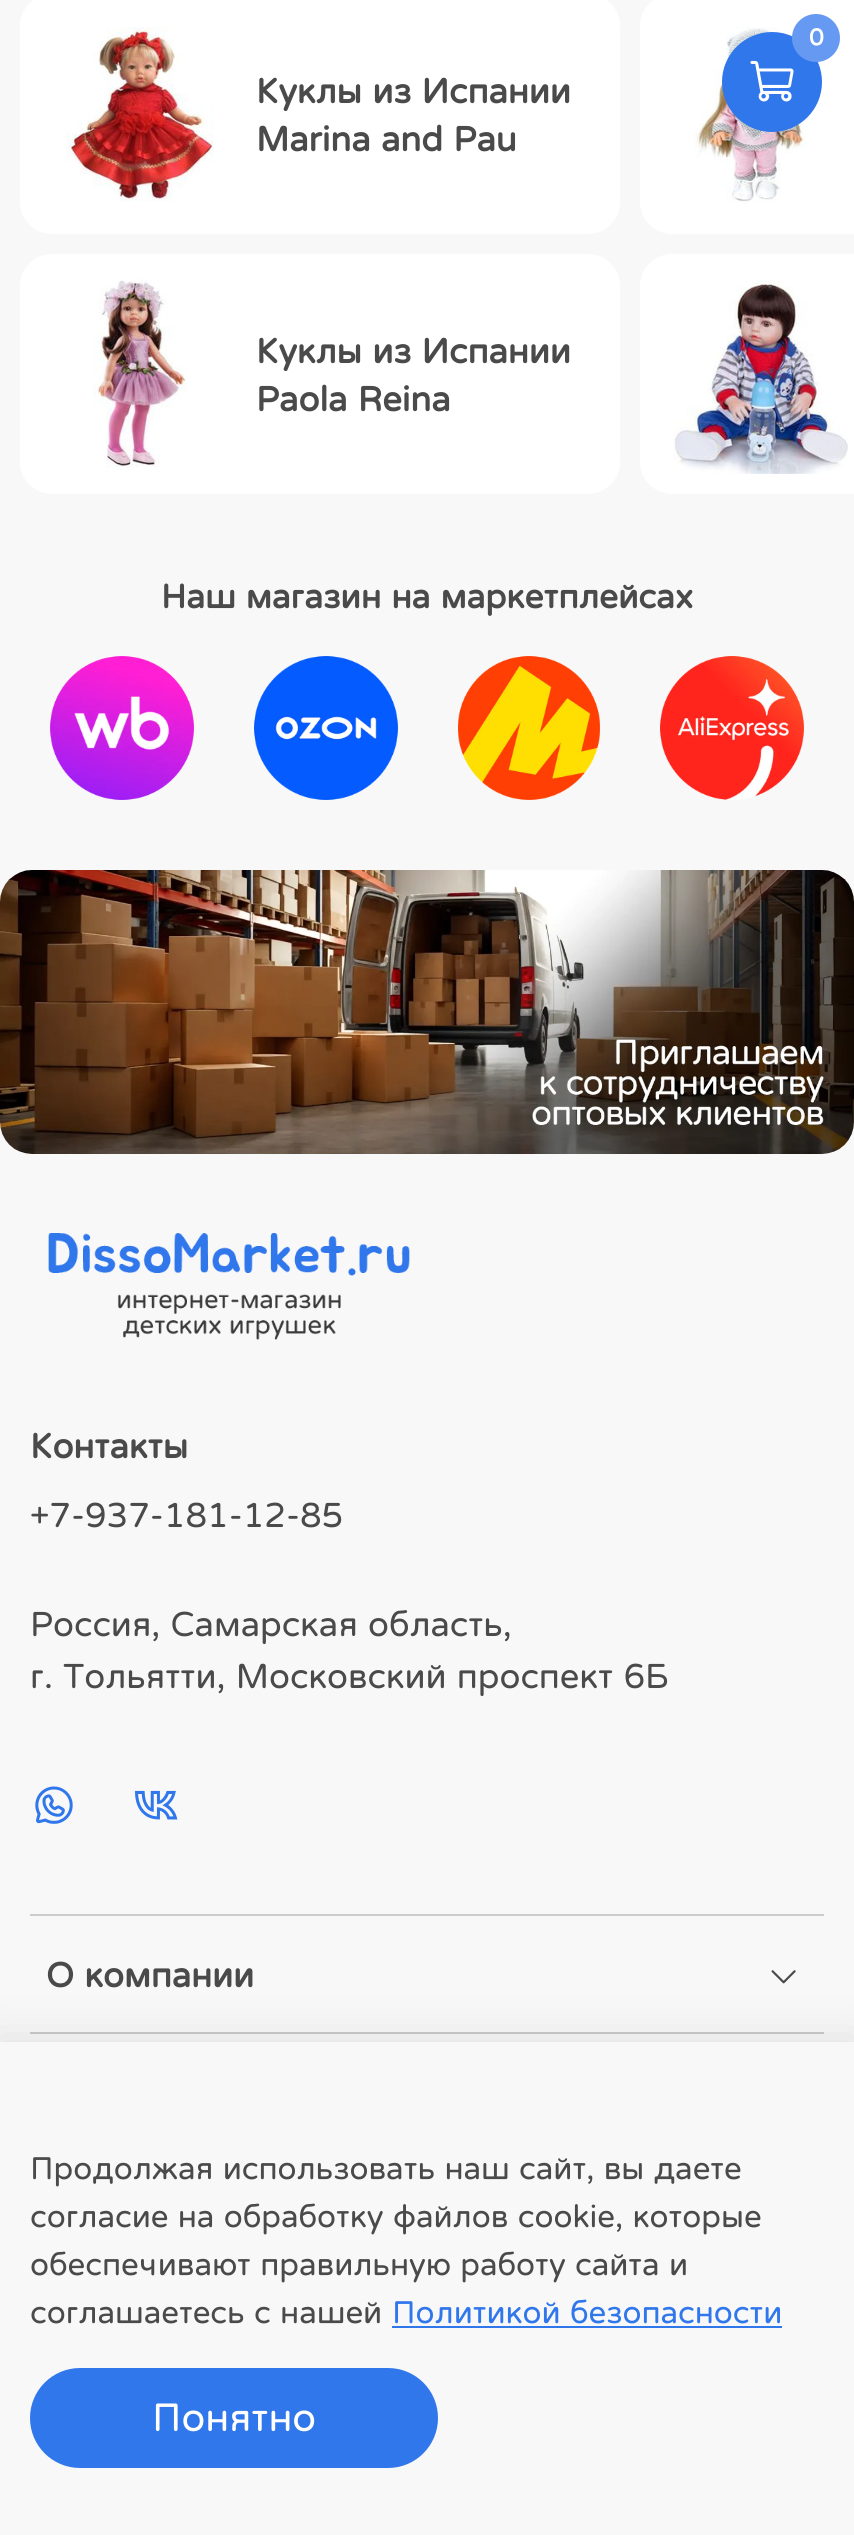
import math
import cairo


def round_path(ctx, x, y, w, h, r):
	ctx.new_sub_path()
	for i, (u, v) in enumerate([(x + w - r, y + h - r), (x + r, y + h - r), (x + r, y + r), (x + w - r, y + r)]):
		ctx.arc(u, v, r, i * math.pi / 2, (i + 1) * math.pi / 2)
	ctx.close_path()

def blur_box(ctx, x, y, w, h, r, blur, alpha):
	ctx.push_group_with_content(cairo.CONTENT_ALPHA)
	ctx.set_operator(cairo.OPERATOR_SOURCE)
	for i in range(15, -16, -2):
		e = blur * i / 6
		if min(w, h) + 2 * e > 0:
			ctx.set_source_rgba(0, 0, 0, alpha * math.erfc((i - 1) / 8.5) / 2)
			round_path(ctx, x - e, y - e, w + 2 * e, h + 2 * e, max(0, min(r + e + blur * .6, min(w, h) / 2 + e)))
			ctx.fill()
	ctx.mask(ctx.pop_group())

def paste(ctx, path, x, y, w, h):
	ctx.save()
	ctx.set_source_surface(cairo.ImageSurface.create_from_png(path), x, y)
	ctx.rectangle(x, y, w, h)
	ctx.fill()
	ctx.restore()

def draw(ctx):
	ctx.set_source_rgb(0.969, 0.969, 0.969)
	ctx.paint()
	ctx.set_source_rgb(1, 1, 1)
	ctx.new_path()
	ctx.move_to(672, -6)
	ctx.line_to(854, -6)
	ctx.line_to(854, 234)
	ctx.line_to(672, 234)
	ctx.curve_to(654.5, 234, 640, 219.5, 640, 202)
	ctx.line_to(640, 26)
	ctx.curve_to(640, 8.5, 654.5, -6, 672, -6)
	ctx.close_path()
	ctx.fill()
	paste(ctx, 'media/3.png', 687, 27, 120, 175)
	ctx.set_source_rgb(0.192, 0.467, 0.925)
	ctx.arc(772, 82, 49, 0, 2 * math.pi)
	ctx.fill_preserve()
	ctx.stroke()
	paste(ctx, 'media/1.png', 750, 60, 44, 42)
	ctx.set_source_rgb(0.4, 0.6, 0.945)
	ctx.arc(816, 38, 24, 0, 2 * math.pi)
	ctx.fill()
	ctx.select_font_face('Huninn', cairo.FONT_SLANT_NORMAL, cairo.FONT_WEIGHT_BOLD)
	ctx.set_font_size(24)
	ctx.set_source_rgb(1, 1, 1)
	ctx.move_to(809, 46)
	ctx.show_text('0')
	paste(ctx, 'media/14.png', 771, 1970, 25, 14)
	ctx.set_source_rgb(0.8, 0.8, 0.8)
	ctx.rectangle(30, 2032, 794, 2)
	ctx.fill()
	ctx.set_source_rgb(0, 0, 0)
	blur_box(ctx, -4, 2036, 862, 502, 0, 23, 0.09)
	ctx.set_source_rgb(0.969, 0.969, 0.969)
	ctx.rectangle(0, 2042, 854, 493)
	ctx.fill()
	ctx.select_font_face('Huninn')
	ctx.set_font_size(32)
	ctx.set_source_rgb(0.29, 0.29, 0.29)
	for x, y, s in [
		(30, 2180, 'Продолжая использовать наш сайт, вы даете'),
		(30, 2228, 'согласие на обработку файлов cookie, которые'),
		(30, 2276, 'обеспечивают правильную работу сайта и'),
		(30, 2324, 'соглашаетесь с нашей'),
	]:
		ctx.move_to(x, y)
		ctx.show_text(s)
	ctx.set_source_rgb(0.192, 0.467, 0.925)
	ctx.move_to(392, 2324)
	ctx.show_text('Политикой безопасности')
	ctx.rectangle(392, 2326, 390, 2)
	ctx.fill()
	round_path(ctx, 30, 2368, 408, 100, 50)
	ctx.fill()
	ctx.set_font_size(40)
	ctx.set_source_rgb(1, 1, 1)
	ctx.move_to(152, 2432)
	ctx.show_text('Понятно')
	round_path(ctx, 20, -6, 600, 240, 32)
	ctx.fill()
	paste(ctx, 'media/2.png', 66, 27, 148, 175)
	ctx.select_font_face('Huninn', cairo.FONT_SLANT_NORMAL, cairo.FONT_WEIGHT_BOLD)
	ctx.set_font_size(35.25)
	ctx.set_source_rgb(0.29, 0.29, 0.29)
	ctx.move_to(256, 104)
	ctx.show_text('Куклы из Испании')
	ctx.move_to(256, 152)
	ctx.show_text('Marina and Pau')
	ctx.set_source_rgb(1, 1, 1)
	round_path(ctx, 20, 254, 600, 240, 32)
	ctx.fill()
	paste(ctx, 'media/4.png', 93, 278, 94, 192)
	ctx.set_source_rgb(0.29, 0.29, 0.29)
	ctx.move_to(256, 364)
	ctx.show_text('Куклы из Испании')
	ctx.move_to(256, 412)
	ctx.show_text('Paola Reina')
	ctx.set_source_rgb(1, 1, 1)
	ctx.new_path()
	ctx.move_to(672, 254)
	ctx.line_to(854, 254)
	ctx.line_to(854, 494)
	ctx.line_to(672, 494)
	ctx.curve_to(654.5, 494, 640, 479.5, 640, 462)
	ctx.line_to(640, 286)
	ctx.curve_to(640, 268.5, 654.5, 254, 672, 254)
	ctx.close_path()
	ctx.fill()
	paste(ctx, 'media/5.png', 673, 280, 175, 194)
	ctx.set_font_size(34.25)
	ctx.set_source_rgb(0.29, 0.29, 0.29)
	ctx.move_to(161, 609)
	ctx.show_text('Наш магазин на маркетплейсах')
	paste(ctx, 'media/6.png', 50, 656, 144, 144)
	paste(ctx, 'media/7.png', 254, 656, 144, 144)
	paste(ctx, 'media/8.png', 458, 656, 142, 144)
	paste(ctx, 'media/9.png', 660, 656, 144, 144)
	paste(ctx, 'media/10.png', 0, 870, 854, 284)
	paste(ctx, 'media/11.png', 48, 1233, 362, 107)
	ctx.set_font_size(35.25)
	ctx.move_to(30, 1459)
	ctx.show_text('Контакты')
	ctx.select_font_face('Huninn')
	for x, y, s in [
		(30, 1528, '+7-937-181-12-85'),
		(30, 1637, 'Россия, Самарская область,'),
		(30, 1689, 'г. Тольятти, Московский проспект 6Б'),
	]:
		ctx.move_to(x, y)
		ctx.show_text(s)
	paste(ctx, 'media/12.png', 35, 1786, 38, 38)
	paste(ctx, 'media/13.png', 135, 1790, 43, 30)
	ctx.set_source_rgb(0.8, 0.8, 0.8)
	ctx.rectangle(30, 1914, 794, 2)
	ctx.fill()
	ctx.select_font_face('Huninn', cairo.FONT_SLANT_NORMAL, cairo.FONT_WEIGHT_BOLD)
	ctx.set_source_rgb(0.29, 0.29, 0.29)
	ctx.move_to(46, 1988)
	ctx.show_text('О компании')


surface = cairo.ImageSurface(cairo.FORMAT_RGB24, 854, 2535)
ctx = cairo.Context(surface)
options = cairo.FontOptions()
options.set_hint_metrics(cairo.HINT_METRICS_OFF)
options.set_hint_style(cairo.HINT_STYLE_NONE)
ctx.set_font_options(options)
ctx.set_miter_limit(4)
draw(ctx)
surface.write_to_png('image.png')
